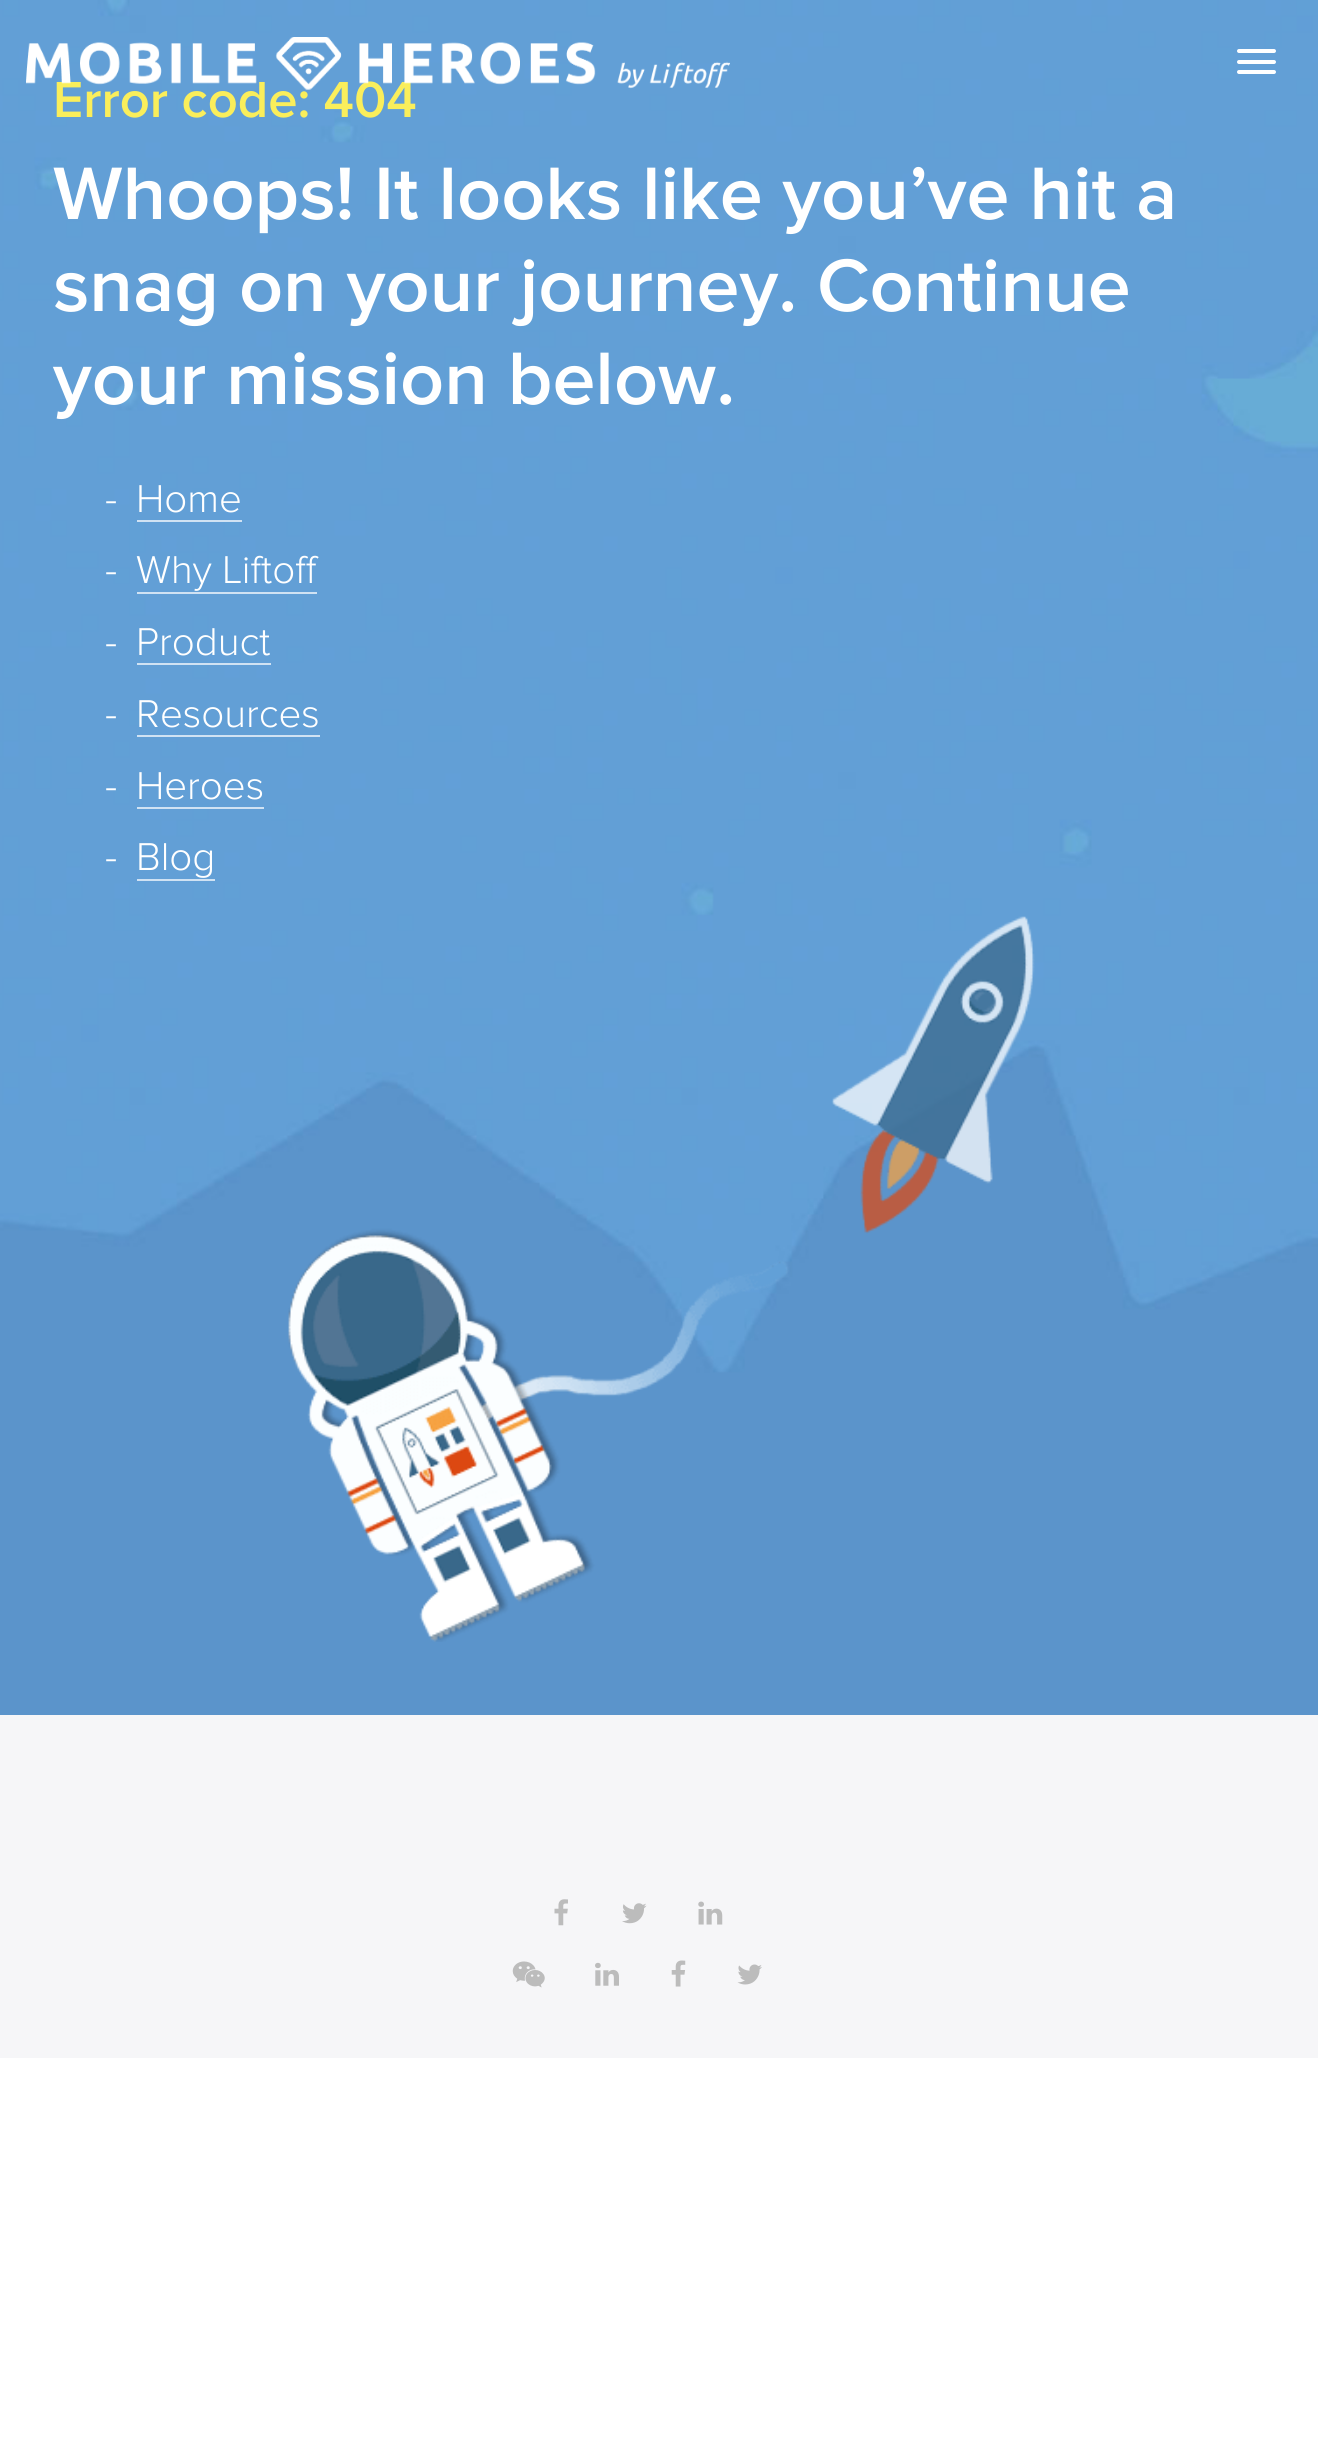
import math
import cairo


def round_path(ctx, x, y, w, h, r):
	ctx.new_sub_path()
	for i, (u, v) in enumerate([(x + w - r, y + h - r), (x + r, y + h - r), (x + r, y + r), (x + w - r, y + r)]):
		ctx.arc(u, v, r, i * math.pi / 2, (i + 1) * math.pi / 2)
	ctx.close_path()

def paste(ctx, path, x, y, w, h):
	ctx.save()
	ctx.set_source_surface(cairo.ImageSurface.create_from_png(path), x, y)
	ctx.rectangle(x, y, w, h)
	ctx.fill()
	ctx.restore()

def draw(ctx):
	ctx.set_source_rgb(1, 1, 1)
	ctx.paint()
	paste(ctx, 'media/2.png', 0, 0, 1318, 1715)
	ctx.select_font_face('Proxima Nova SemiBold')
	ctx.set_font_size(52.5)
	ctx.set_source_rgb(0.98, 0.933, 0.357)
	ctx.move_to(53, 117)
	ctx.show_text('Error code: 404')
	paste(ctx, 'media/1.png', 26, 37, 704, 53)
	ctx.set_source_rgb(1, 1, 1)
	round_path(ctx, 1237, 49, 39, 4, 2)
	ctx.fill()
	round_path(ctx, 1237, 60, 39, 4, 2)
	ctx.fill()
	round_path(ctx, 1237, 70, 39, 4, 2)
	ctx.fill()
	ctx.set_font_size(77)
	for x, y, s in [
		(53, 219, 'Whoops! It looks like you’ve hit a'),
		(53, 311, 'snag on your journey. Continue'),
		(53, 404, 'your mission below.'),
	]:
		ctx.move_to(x, y)
		ctx.show_text(s)
	ctx.select_font_face('Proxima Nova Light')
	ctx.set_font_size(40.25)
	ctx.move_to(105, 512)
	ctx.show_text('-')
	ctx.set_source_rgb(0.816, 0.886, 0.953)
	ctx.rectangle(137, 520, 105, 2)
	ctx.fill()
	ctx.set_source_rgb(1, 1, 1)
	ctx.move_to(136, 512)
	ctx.show_text('Home')
	ctx.move_to(105, 583)
	ctx.show_text('-')
	ctx.set_source_rgb(0.816, 0.886, 0.953)
	ctx.rectangle(137, 592, 180, 2)
	ctx.fill()
	ctx.set_source_rgb(1, 1, 1)
	ctx.move_to(136, 583)
	ctx.show_text('Why Liftoff')
	ctx.move_to(105, 655)
	ctx.show_text('-')
	ctx.set_source_rgb(0.816, 0.886, 0.953)
	ctx.rectangle(137, 663, 134, 2)
	ctx.fill()
	ctx.set_source_rgb(1, 1, 1)
	ctx.move_to(136, 655)
	ctx.show_text('Product')
	ctx.move_to(105, 727)
	ctx.show_text('-')
	ctx.set_source_rgb(0.816, 0.886, 0.953)
	ctx.rectangle(137, 735, 183, 2)
	ctx.fill()
	ctx.set_source_rgb(1, 1, 1)
	ctx.move_to(136, 727)
	ctx.show_text('Resources')
	ctx.move_to(105, 799)
	ctx.show_text('-')
	ctx.set_source_rgb(0.816, 0.886, 0.953)
	ctx.rectangle(137, 807, 127, 2)
	ctx.fill()
	ctx.set_source_rgb(1, 1, 1)
	ctx.move_to(136, 799)
	ctx.show_text('Heroes')
	ctx.move_to(105, 870)
	ctx.show_text('-')
	ctx.set_source_rgb(0.816, 0.886, 0.953)
	ctx.rectangle(137, 879, 78, 2)
	ctx.fill()
	ctx.set_source_rgb(1, 1, 1)
	ctx.move_to(136, 870)
	ctx.show_text('Blog')
	paste(ctx, 'media/3.png', 288, 916, 747, 726)
	ctx.set_source_rgb(0.961, 0.961, 0.969)
	ctx.rectangle(0, 1715, 1318, 343)
	ctx.fill()
	paste(ctx, 'media/4.png', 554, 1899, 14, 27)
	paste(ctx, 'media/5.png', 622, 1903, 25, 21)
	paste(ctx, 'media/6.png', 698, 1901, 25, 24)
	paste(ctx, 'media/7.png', 512, 1961, 33, 27)
	paste(ctx, 'media/8.png', 595, 1962, 24, 24)
	paste(ctx, 'media/9.png', 671, 1960, 15, 27)
	paste(ctx, 'media/10.png', 737, 1964, 25, 21)


surface = cairo.ImageSurface(cairo.FORMAT_RGB24, 1318, 2441)
ctx = cairo.Context(surface)
options = cairo.FontOptions()
options.set_hint_metrics(cairo.HINT_METRICS_OFF)
options.set_hint_style(cairo.HINT_STYLE_NONE)
ctx.set_font_options(options)
ctx.set_miter_limit(4)
draw(ctx)
surface.write_to_png('image.png')
